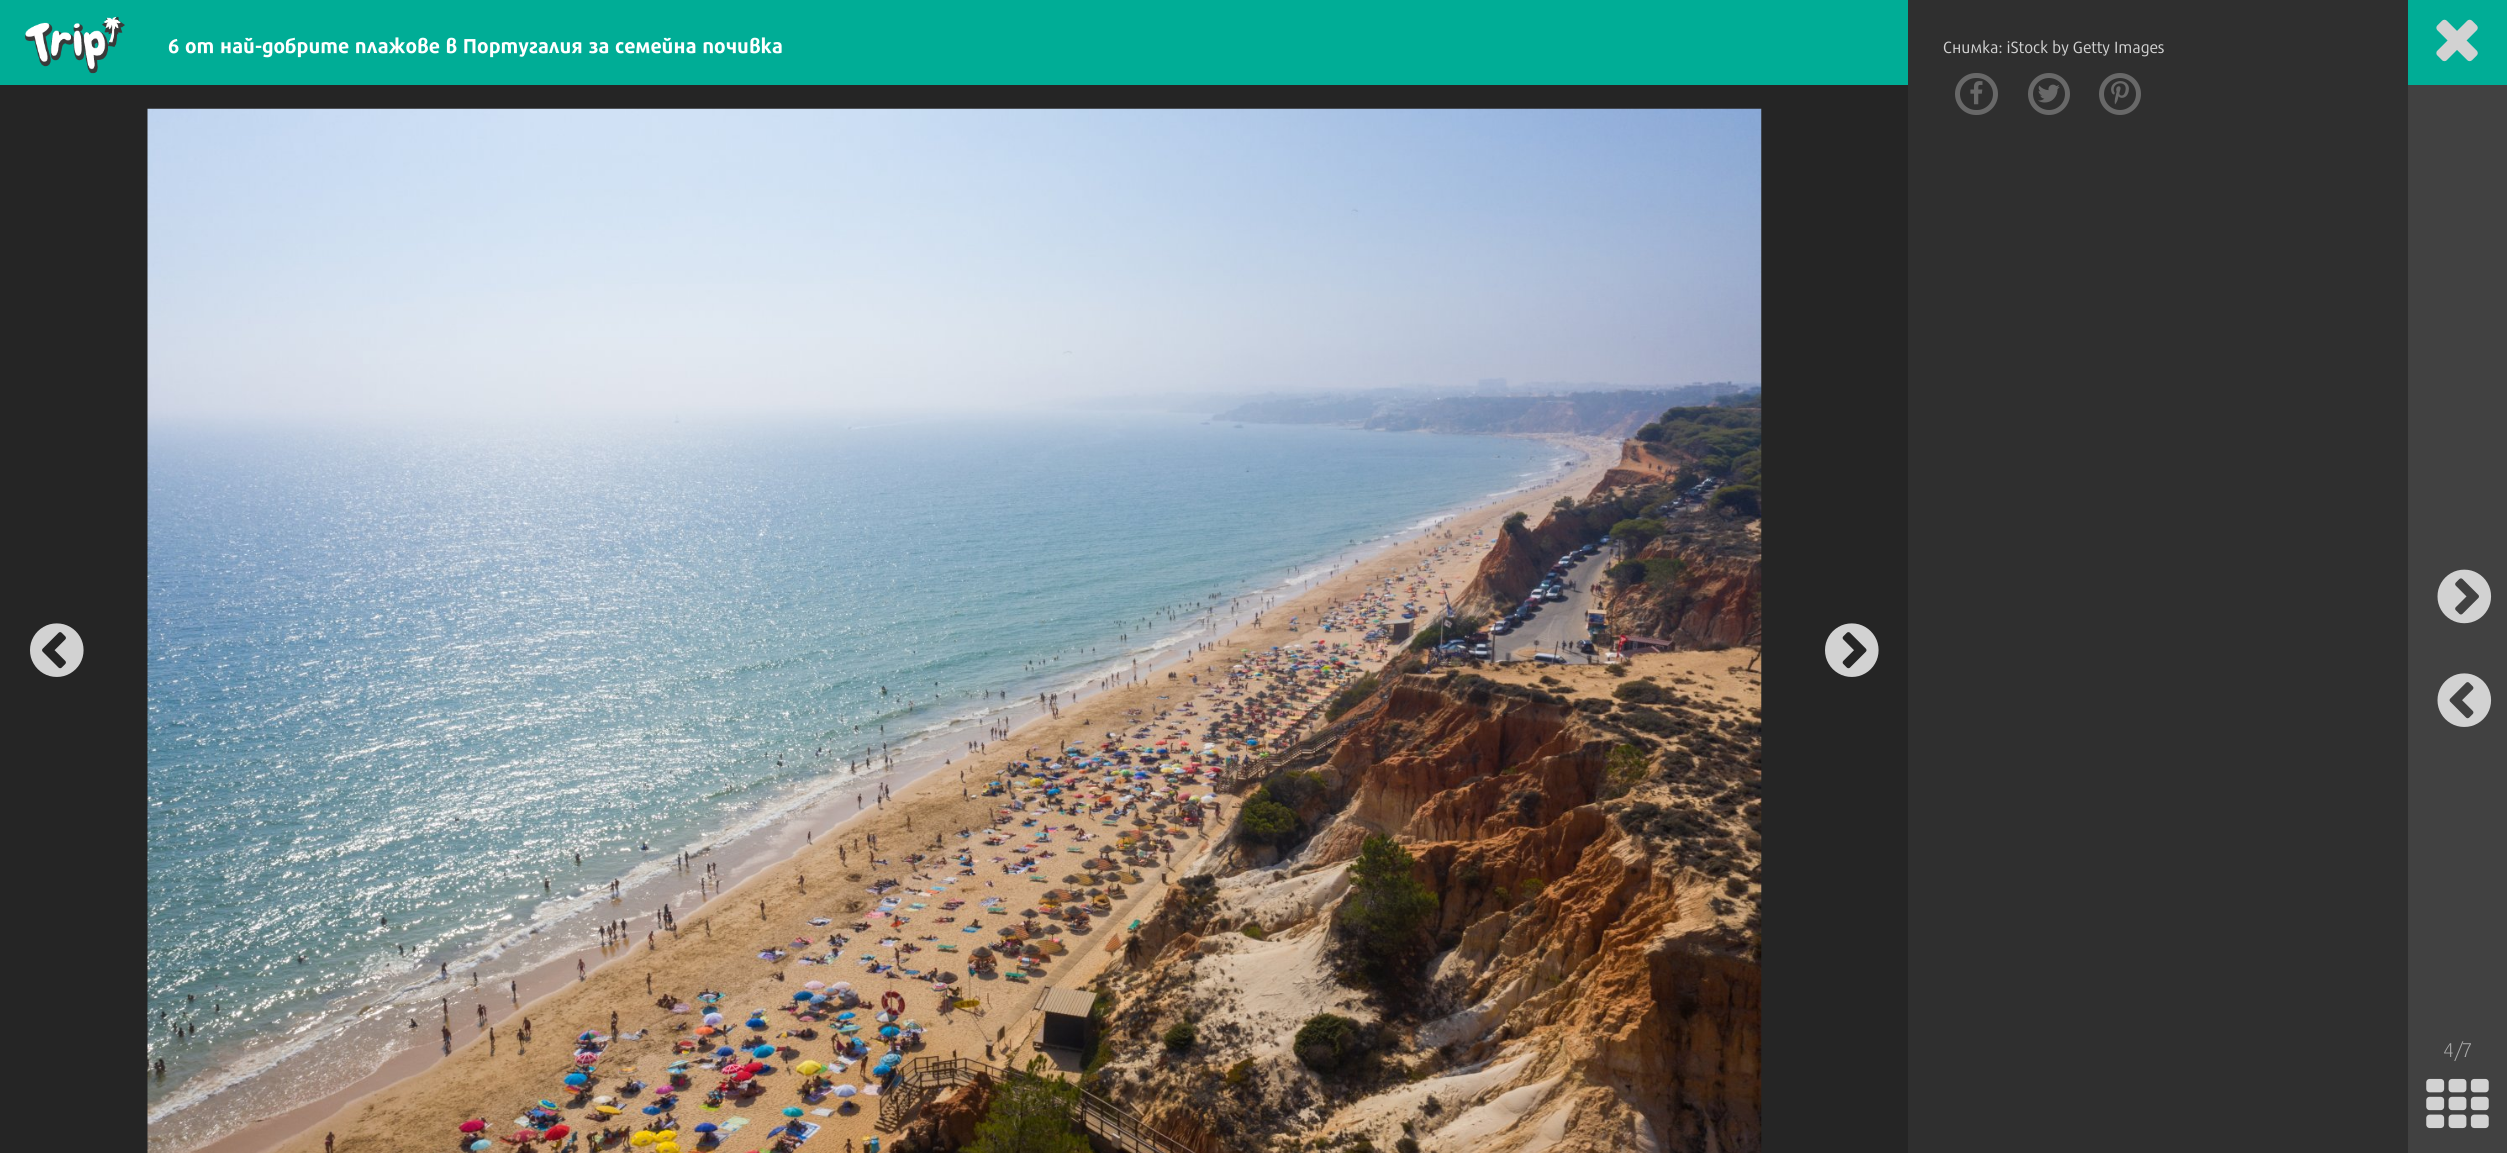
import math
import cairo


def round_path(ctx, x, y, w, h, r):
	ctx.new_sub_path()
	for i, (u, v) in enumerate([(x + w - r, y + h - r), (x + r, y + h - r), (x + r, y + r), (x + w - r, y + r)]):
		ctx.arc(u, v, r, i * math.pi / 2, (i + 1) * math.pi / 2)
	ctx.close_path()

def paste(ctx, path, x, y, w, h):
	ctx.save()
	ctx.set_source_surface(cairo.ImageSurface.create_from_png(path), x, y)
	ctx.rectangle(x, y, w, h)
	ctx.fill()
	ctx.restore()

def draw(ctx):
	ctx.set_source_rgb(0.145, 0.145, 0.145)
	ctx.paint()
	ctx.set_source_rgb(0, 0.678, 0.588)
	ctx.rectangle(0, 0, 1908, 85)
	ctx.fill()
	paste(ctx, 'media/1.png', 25, 16, 100, 58)
	ctx.select_font_face('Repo', cairo.FONT_SLANT_NORMAL, cairo.FONT_WEIGHT_BOLD)
	ctx.set_font_size(20)
	ctx.set_source_rgb(1, 1, 1)
	ctx.move_to(168, 53)
	ctx.show_text('6 от най-добрите плажове в Португалия за семейна почивка')
	paste(ctx, 'media/2.png', 30, 623, 54, 54)
	paste(ctx, 'media/3.png', 147, 108, 1615, 1045)
	paste(ctx, 'media/4.png', 1825, 623, 54, 54)
	ctx.set_source_rgb(0.184, 0.184, 0.184)
	ctx.rectangle(1908, 0, 500, 1153)
	ctx.fill()
	ctx.select_font_face('Repo')
	ctx.set_font_size(16.25)
	ctx.set_source_rgb(0.824, 0.824, 0.824)
	ctx.move_to(1943, 53)
	ctx.show_text('Снимка: iStock by Getty Images')
	round_path(ctx, 1957.5, 75.5, 38, 37, 18.5)
	ctx.set_source_rgb(0.408, 0.408, 0.408)
	ctx.set_line_width(5)
	ctx.stroke()
	paste(ctx, 'media/5.png', 1970, 81, 13, 24)
	ctx.arc(2049, 94, 18.5, 0, 2 * math.pi)
	ctx.stroke()
	paste(ctx, 'media/6.png', 2038, 84, 22, 19)
	ctx.arc(2120, 94, 18.5, 0, 2 * math.pi)
	ctx.stroke()
	paste(ctx, 'media/7.png', 2111, 81, 18, 24)
	ctx.set_source_rgb(0.255, 0.255, 0.255)
	ctx.rectangle(2408, 85, 99, 1068)
	ctx.fill()
	ctx.set_source_rgb(0, 0.678, 0.588)
	ctx.rectangle(2408, 0, 99, 85)
	ctx.fill()
	paste(ctx, 'media/8.png', 2436, 19, 42, 43)
	paste(ctx, 'media/9.png', 2437, 569, 55, 55)
	paste(ctx, 'media/10.png', 2437, 673, 55, 54)
	ctx.select_font_face('Repo Light')
	ctx.set_font_size(20)
	ctx.set_source_rgb(0.663, 0.663, 0.663)
	ctx.move_to(2443, 1057)
	ctx.show_text('4/7')
	paste(ctx, 'media/11.png', 2426, 1078, 63, 51)


surface = cairo.ImageSurface(cairo.FORMAT_RGB24, 2507, 1153)
ctx = cairo.Context(surface)
options = cairo.FontOptions()
options.set_hint_metrics(cairo.HINT_METRICS_OFF)
options.set_hint_style(cairo.HINT_STYLE_NONE)
ctx.set_font_options(options)
ctx.set_miter_limit(4)
draw(ctx)
surface.write_to_png('image.png')
